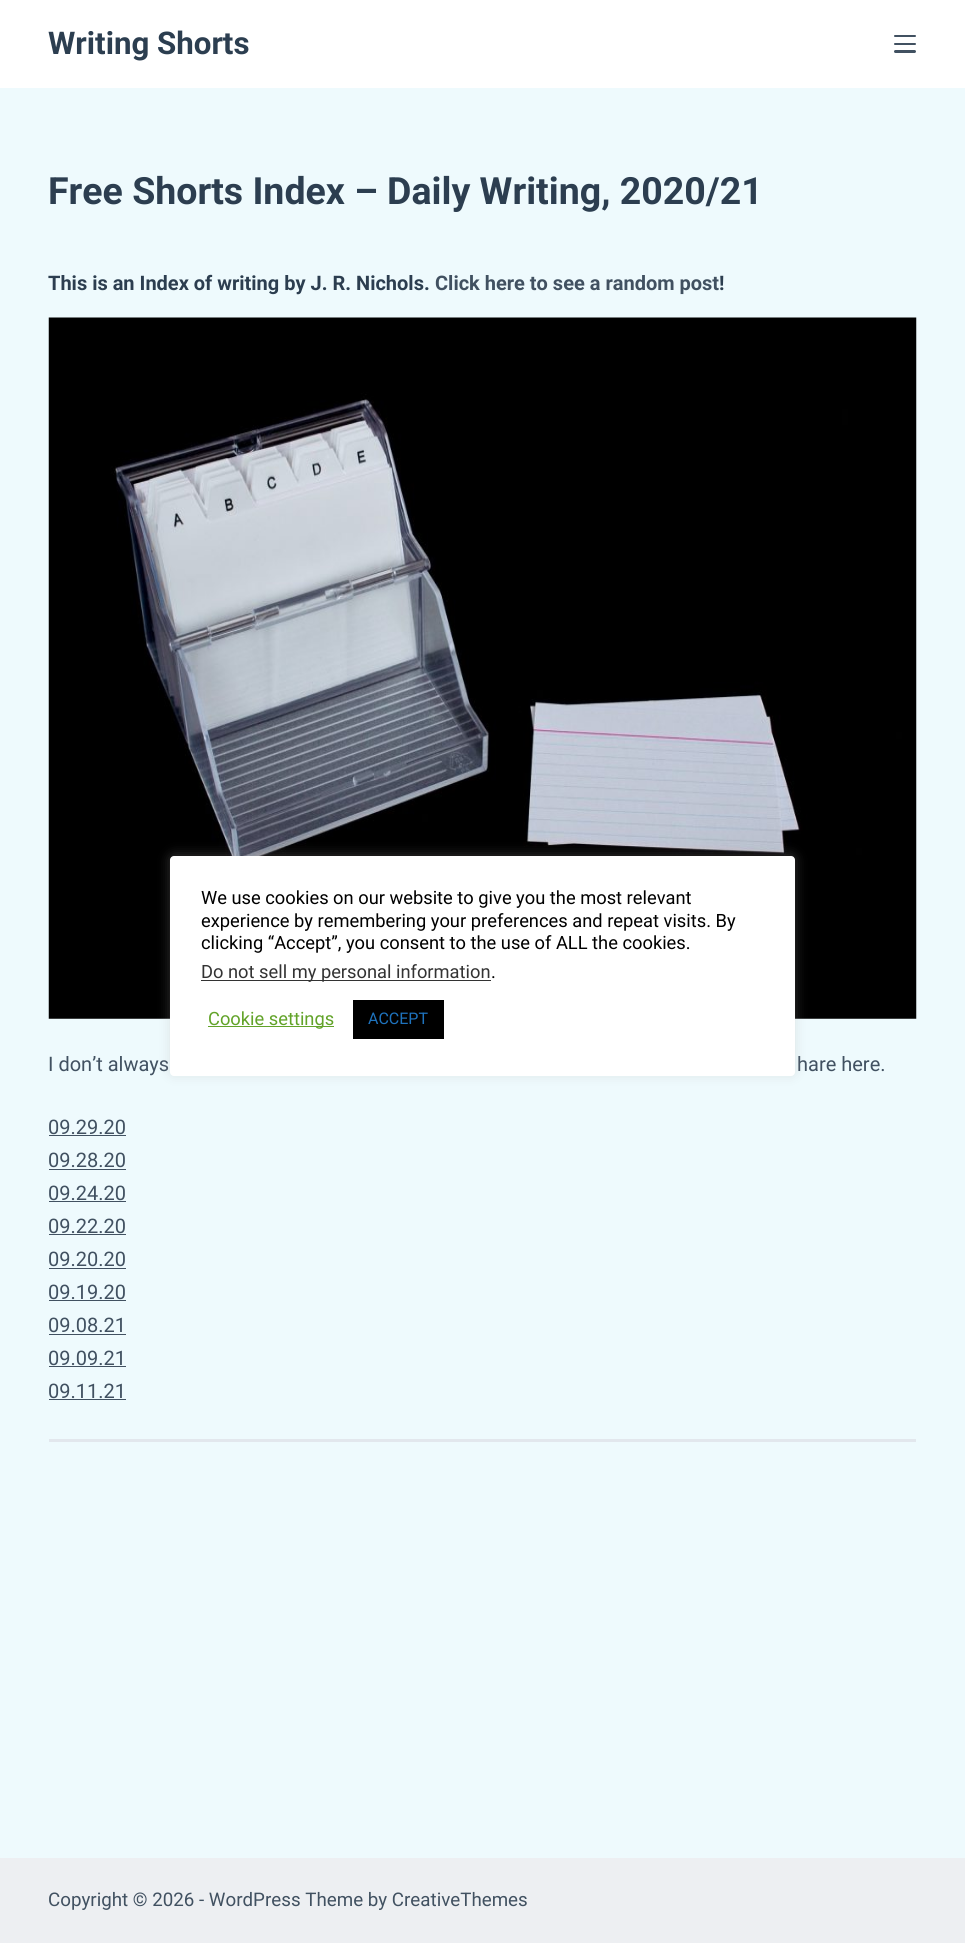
import math
import cairo


def round_path(ctx, x, y, w, h, r):
	ctx.new_sub_path()
	for i, (u, v) in enumerate([(x + w - r, y + h - r), (x + r, y + h - r), (x + r, y + r), (x + w - r, y + r)]):
		ctx.arc(u, v, r, i * math.pi / 2, (i + 1) * math.pi / 2)
	ctx.close_path()

def blur_box(ctx, x, y, w, h, r, blur, alpha):
	ctx.push_group_with_content(cairo.CONTENT_ALPHA)
	ctx.set_operator(cairo.OPERATOR_SOURCE)
	for i in range(15, -16, -2):
		e = blur * i / 6
		if min(w, h) + 2 * e > 0:
			ctx.set_source_rgba(0, 0, 0, alpha * math.erfc((i - 1) / 8.5) / 2)
			round_path(ctx, x - e, y - e, w + 2 * e, h + 2 * e, max(0, min(r + e + blur * .6, min(w, h) / 2 + e)))
			ctx.fill()
	ctx.mask(ctx.pop_group())

def paste(ctx, path, x, y, w, h):
	ctx.save()
	ctx.set_source_surface(cairo.ImageSurface.create_from_png(path), x, y)
	ctx.rectangle(x, y, w, h)
	ctx.fill()
	ctx.restore()

def draw(ctx):
	ctx.set_source_rgb(0.933, 0.98, 0.992)
	ctx.paint()
	ctx.set_source_rgb(1, 1, 1)
	ctx.rectangle(0, 0, 965, 88)
	ctx.fill()
	ctx.select_font_face('Roboto', cairo.FONT_SLANT_NORMAL, cairo.FONT_WEIGHT_BOLD)
	ctx.set_font_size(31.25)
	ctx.set_source_rgb(0.173, 0.243, 0.314)
	ctx.move_to(48, 54)
	ctx.show_text('Writing Shorts')
	ctx.set_source_rgb(0.255, 0.318, 0.38)
	round_path(ctx, 894, 35, 22, 2, 1)
	ctx.fill()
	round_path(ctx, 894, 43, 22, 2, 1)
	ctx.fill()
	round_path(ctx, 894, 50, 22, 3, 1.5)
	ctx.fill()
	ctx.set_font_size(37.5)
	ctx.set_source_rgb(0.173, 0.243, 0.314)
	ctx.move_to(48, 204)
	ctx.show_text('Free Shorts Index – Daily Writing, 2020/21')
	ctx.set_font_size(20)
	ctx.move_to(48, 290)
	ctx.show_text('This is an Index of writing by J. R. Nichols.')
	ctx.set_source_rgb(0.255, 0.318, 0.38)
	ctx.move_to(435, 290)
	ctx.show_text('Click here to see a random post')
	ctx.set_source_rgb(0.173, 0.243, 0.314)
	ctx.move_to(719, 290)
	ctx.show_text('!')
	paste(ctx, 'media/1.png', 48, 317, 869, 702)
	ctx.select_font_face('Roboto')
	ctx.set_source_rgb(0.255, 0.318, 0.38)
	for x, y, s in [
		(48, 1071, 'I don’t always'),
		(797, 1071, 'hare here.'),
		(48, 1134, '09.29.20'),
	]:
		ctx.move_to(x, y)
		ctx.show_text(s)
	ctx.rectangle(49, 1135, 77, 1)
	ctx.fill()
	ctx.move_to(48, 1167)
	ctx.show_text('09.28.20')
	ctx.rectangle(49, 1169, 77, 1)
	ctx.fill()
	ctx.move_to(48, 1200)
	ctx.show_text('09.24.20')
	ctx.rectangle(49, 1201, 77, 1)
	ctx.fill()
	ctx.move_to(48, 1233)
	ctx.show_text('09.22.20')
	ctx.rectangle(49, 1234, 77, 1)
	ctx.fill()
	ctx.move_to(48, 1266)
	ctx.show_text('09.20.20')
	ctx.rectangle(49, 1268, 77, 1)
	ctx.fill()
	ctx.move_to(48, 1299)
	ctx.show_text('09.19.20')
	ctx.rectangle(49, 1300, 77, 1)
	ctx.fill()
	ctx.move_to(48, 1332)
	ctx.show_text('09.08.21')
	ctx.rectangle(49, 1334, 77, 1)
	ctx.fill()
	ctx.move_to(48, 1365)
	ctx.show_text('09.09.21')
	ctx.rectangle(49, 1366, 77, 1)
	ctx.fill()
	ctx.move_to(48, 1398)
	ctx.show_text('09.11.21')
	ctx.rectangle(49, 1399, 77, 1)
	ctx.fill()
	ctx.set_source_rgb(0.886, 0.906, 0.929)
	ctx.rectangle(49, 1439, 867, 3)
	ctx.fill()
	ctx.set_source_rgb(0.929, 0.937, 0.949)
	ctx.rectangle(0, 1858, 965, 85)
	ctx.fill()
	ctx.set_font_size(18.75)
	ctx.set_source_rgb(0.255, 0.318, 0.38)
	ctx.move_to(48, 1906)
	ctx.show_text('Copyright © 2026 - WordPress Theme by CreativeThemes')
	ctx.set_source_rgb(0.675, 0.671, 0.671)
	blur_box(ctx, 170, 855, 625, 220, 4, 6, 0.3)
	ctx.set_source_rgb(1, 1, 1)
	round_path(ctx, 170, 856, 625, 220, 4)
	ctx.fill()
	ctx.set_font_size(18.3)
	ctx.set_source_rgb(0, 0, 0)
	for x, y, s in [
		(201, 904, 'We use cookies on our website to give you the most relevant'),
		(201, 927, 'experience by remembering your preferences and repeat visits. By'),
		(201, 949, 'clicking “Accept”, you consent to the use of ALL the cookies.'),
	]:
		ctx.move_to(x, y)
		ctx.show_text(s)
	ctx.set_source_rgb(0.2, 0.2, 0.2)
	ctx.rectangle(201, 980, 290, 1)
	ctx.fill()
	ctx.move_to(201, 978)
	ctx.show_text('Do not sell my personal information')
	ctx.set_source_rgb(0, 0, 0)
	ctx.move_to(491, 978)
	ctx.show_text('.')
	ctx.set_source_rgb(0.384, 0.639, 0.161)
	ctx.rectangle(208, 1026, 126, 1)
	ctx.fill()
	ctx.move_to(208, 1025)
	ctx.show_text('Cookie settings')
	ctx.set_source_rgb(0, 0, 0)
	ctx.rectangle(353, 1000, 91, 39)
	ctx.fill()
	ctx.set_font_size(16)
	ctx.set_source_rgb(0.118, 0.451, 0.745)
	ctx.move_to(368, 1024)
	ctx.show_text('ACCEPT')


surface = cairo.ImageSurface(cairo.FORMAT_RGB24, 965, 1943)
ctx = cairo.Context(surface)
options = cairo.FontOptions()
options.set_hint_metrics(cairo.HINT_METRICS_OFF)
options.set_hint_style(cairo.HINT_STYLE_NONE)
ctx.set_font_options(options)
ctx.set_miter_limit(4)
draw(ctx)
surface.write_to_png('image.png')
